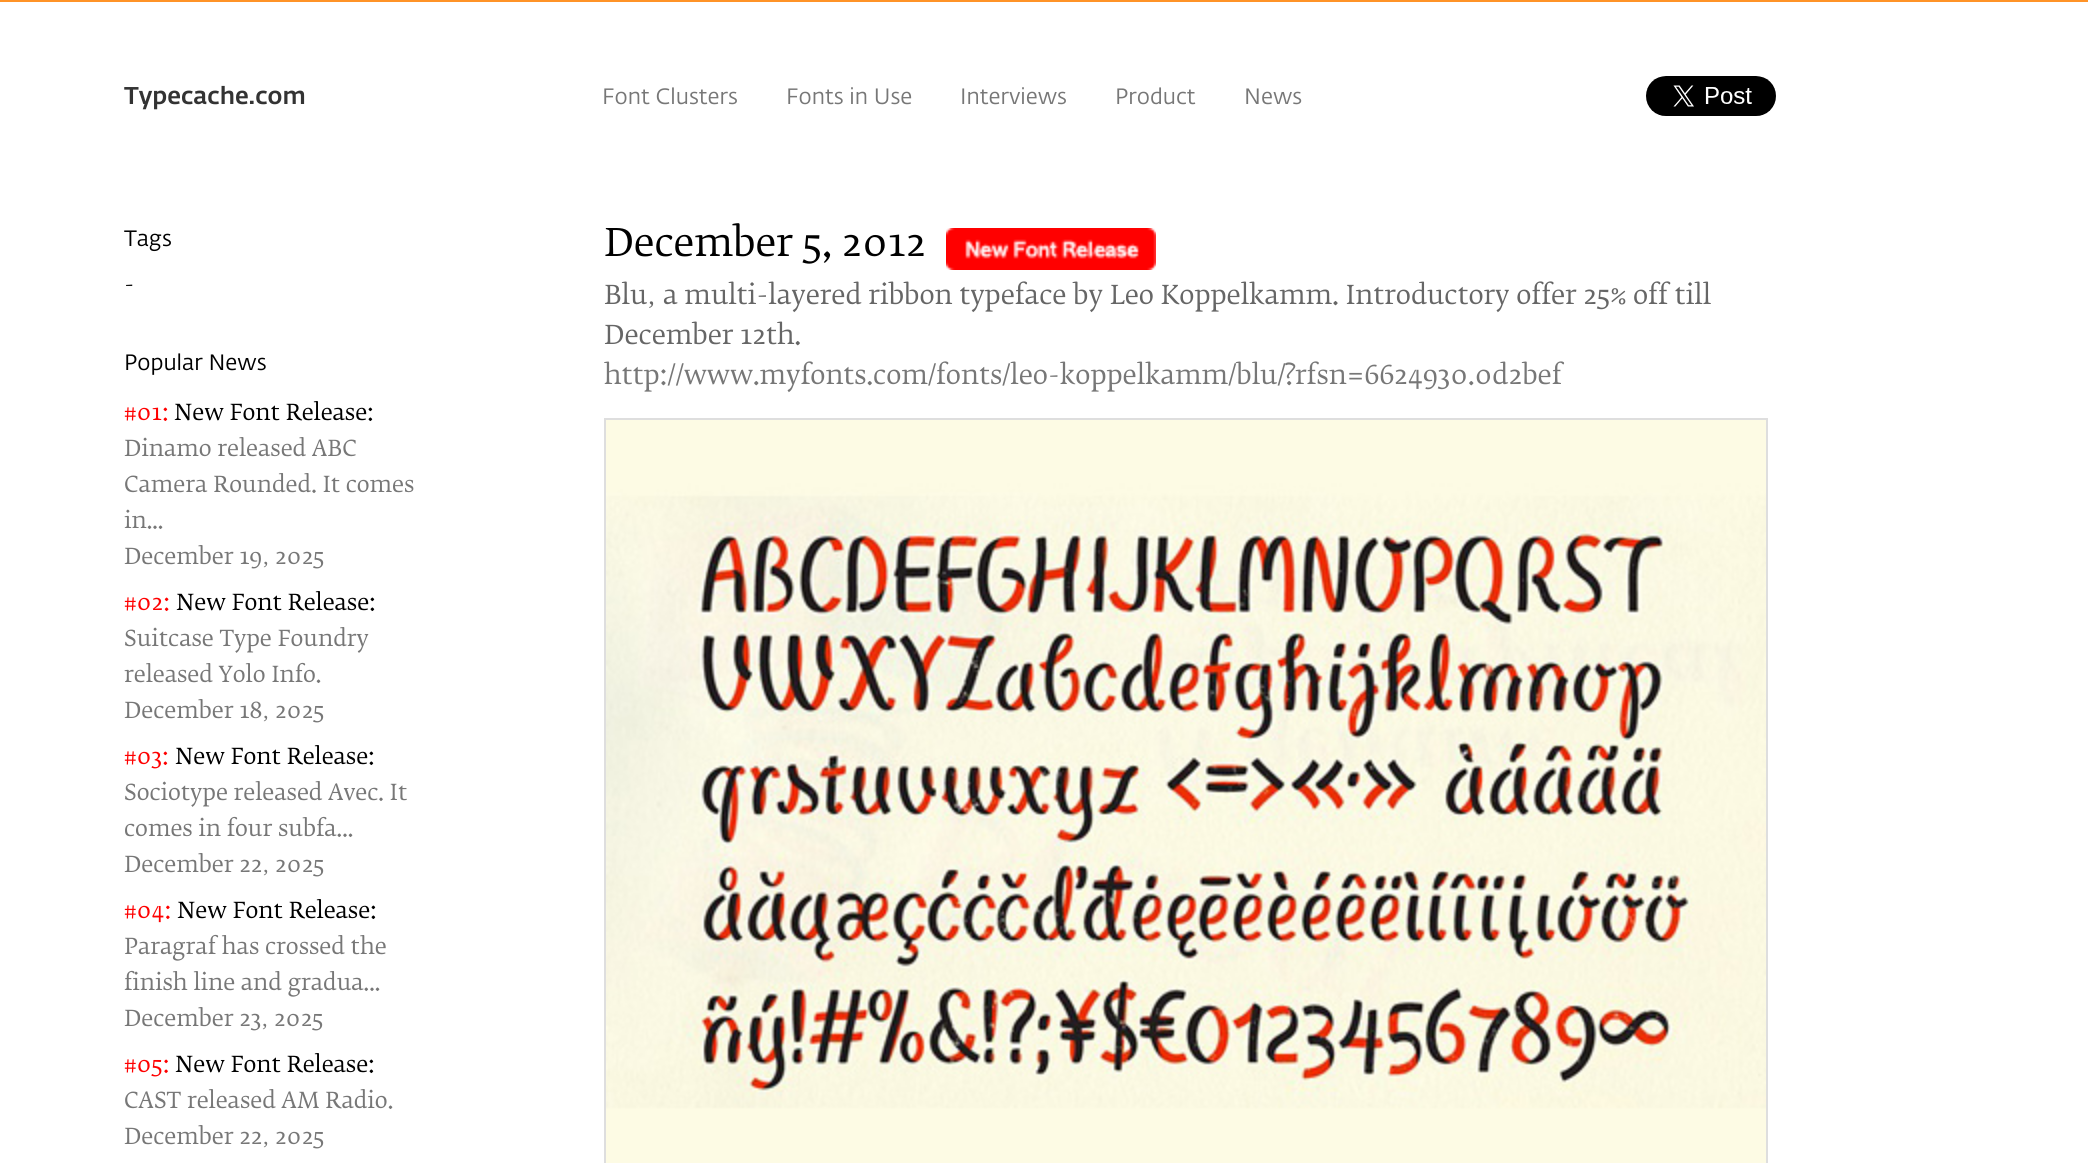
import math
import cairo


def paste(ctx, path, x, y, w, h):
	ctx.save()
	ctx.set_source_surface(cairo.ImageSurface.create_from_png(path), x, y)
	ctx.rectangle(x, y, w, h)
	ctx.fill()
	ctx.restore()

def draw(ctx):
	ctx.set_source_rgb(1, 1, 1)
	ctx.paint()
	ctx.set_source_rgb(1, 0.576, 0.153)
	ctx.rectangle(0, 0, 2088, 2)
	ctx.fill()
	ctx.select_font_face('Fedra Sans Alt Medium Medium')
	ctx.set_font_size(24)
	ctx.set_source_rgb(0.2, 0.2, 0.2)
	ctx.move_to(124, 104)
	ctx.show_text('Typecache.com')
	ctx.select_font_face('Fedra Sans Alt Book')
	ctx.set_font_size(22)
	ctx.set_source_rgb(0.467, 0.467, 0.467)
	for x, y, s in [
		(602, 104, 'Font Clusters'),
		(786, 104, 'Fonts in Use'),
		(960, 104, 'Interviews'),
		(1115, 104, 'Product'),
		(1244, 104, 'News'),
	]:
		ctx.move_to(x, y)
		ctx.show_text(s)
	paste(ctx, 'media/1.png', 1646, 76, 130, 40)
	ctx.set_source_rgb(0, 0, 0)
	ctx.move_to(124, 246)
	ctx.show_text('Tags')
	ctx.select_font_face('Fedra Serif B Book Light')
	ctx.move_to(124, 292)
	ctx.show_text('-')
	ctx.select_font_face('Fedra Sans Alt Book')
	ctx.move_to(124, 370)
	ctx.show_text('Popular News')
	ctx.select_font_face('Fedra Serif B Book Light')
	ctx.set_source_rgb(1, 0, 0)
	ctx.move_to(124, 420)
	ctx.show_text('#01:')
	ctx.set_source_rgb(0, 0, 0)
	ctx.move_to(174, 420)
	ctx.show_text('New Font Release:')
	ctx.set_source_rgb(0.467, 0.467, 0.467)
	for x, y, s in [
		(124, 456, 'Dinamo released ABC'),
		(124, 492, 'Camera Rounded. It comes'),
		(124, 528, 'in...'),
		(124, 564, 'December 19'),
	]:
		ctx.move_to(x, y)
		ctx.show_text(s)
	ctx.select_font_face('Liberation Serif')
	ctx.move_to(262, 564)
	ctx.show_text('‚')
	ctx.select_font_face('Fedra Serif B Book Light')
	ctx.move_to(275, 564)
	ctx.show_text('2025')
	ctx.set_source_rgb(1, 0, 0)
	ctx.move_to(124, 610)
	ctx.show_text('#02:')
	ctx.set_source_rgb(0, 0, 0)
	ctx.move_to(176, 610)
	ctx.show_text('New Font Release:')
	ctx.set_source_rgb(0.467, 0.467, 0.467)
	for x, y, s in [
		(124, 646, 'Suitcase Type Foundry'),
		(124, 682, 'released Yolo Info.'),
		(124, 718, 'December 18'),
	]:
		ctx.move_to(x, y)
		ctx.show_text(s)
	ctx.select_font_face('Liberation Serif')
	ctx.move_to(262, 718)
	ctx.show_text('‚')
	ctx.select_font_face('Fedra Serif B Book Light')
	ctx.move_to(275, 718)
	ctx.show_text('2025')
	ctx.set_source_rgb(1, 0, 0)
	ctx.move_to(124, 764)
	ctx.show_text('#03:')
	ctx.set_source_rgb(0, 0, 0)
	ctx.move_to(175, 764)
	ctx.show_text('New Font Release:')
	ctx.set_source_rgb(0.467, 0.467, 0.467)
	for x, y, s in [
		(124, 800, 'Sociotype released Avec. It'),
		(124, 836, 'comes in four subfa...'),
		(124, 872, 'December 22'),
	]:
		ctx.move_to(x, y)
		ctx.show_text(s)
	ctx.select_font_face('Liberation Serif')
	ctx.move_to(262, 872)
	ctx.show_text('‚')
	ctx.select_font_face('Fedra Serif B Book Light')
	ctx.move_to(275, 872)
	ctx.show_text('2025')
	ctx.set_source_rgb(1, 0, 0)
	ctx.move_to(124, 918)
	ctx.show_text('#04:')
	ctx.set_source_rgb(0, 0, 0)
	ctx.move_to(177, 918)
	ctx.show_text('New Font Release:')
	ctx.set_source_rgb(0.467, 0.467, 0.467)
	for x, y, s in [
		(124, 954, 'Paragraf has crossed the'),
		(124, 990, 'finish line and gradua...'),
		(124, 1026, 'December 23'),
	]:
		ctx.move_to(x, y)
		ctx.show_text(s)
	ctx.select_font_face('Liberation Serif')
	ctx.move_to(261, 1026)
	ctx.show_text('‚')
	ctx.select_font_face('Fedra Serif B Book Light')
	ctx.move_to(274, 1026)
	ctx.show_text('2025')
	ctx.set_source_rgb(1, 0, 0)
	ctx.move_to(124, 1072)
	ctx.show_text('#05:')
	ctx.set_source_rgb(0, 0, 0)
	ctx.move_to(175, 1072)
	ctx.show_text('New Font Release:')
	ctx.set_source_rgb(0.467, 0.467, 0.467)
	ctx.move_to(124, 1108)
	ctx.show_text('CAST released AM Radio.')
	ctx.move_to(124, 1144)
	ctx.show_text('December 22')
	ctx.select_font_face('Liberation Serif')
	ctx.move_to(262, 1144)
	ctx.show_text('‚')
	ctx.select_font_face('Fedra Serif B Book Light')
	ctx.move_to(275, 1144)
	ctx.show_text('2025')
	ctx.set_font_size(38)
	ctx.set_source_rgb(0, 0, 0)
	ctx.move_to(604, 256)
	ctx.show_text('December 5, 2012')
	paste(ctx, 'media/2.png', 946, 228, 210, 42)
	ctx.set_font_size(26)
	ctx.set_source_rgb(0.4, 0.4, 0.4)
	ctx.move_to(604, 304)
	ctx.show_text('Blu')
	ctx.select_font_face('Liberation Serif')
	ctx.move_to(647, 304)
	ctx.show_text('‚')
	ctx.select_font_face('Fedra Serif B Book Light')
	ctx.move_to(663, 304)
	ctx.show_text('a multi-layered ribbon typeface by Leo Koppelkamm. Introductory offer 25% off till')
	ctx.move_to(604, 344)
	ctx.show_text('December 12th.')
	ctx.set_source_rgb(0.467, 0.467, 0.467)
	ctx.move_to(604, 384)
	ctx.show_text('http://www.myfonts.com/fonts/leo-koppelkamm/blu/?rfsn=6624930.0d2bef')
	ctx.rectangle(605, 419, 1162, 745)
	ctx.set_source_rgb(0.871, 0.871, 0.871)
	ctx.stroke()
	paste(ctx, 'media/3.png', 606, 420, 1160, 743)


surface = cairo.ImageSurface(cairo.FORMAT_RGB24, 2088, 1163)
ctx = cairo.Context(surface)
options = cairo.FontOptions()
options.set_hint_metrics(cairo.HINT_METRICS_OFF)
options.set_hint_style(cairo.HINT_STYLE_NONE)
ctx.set_font_options(options)
ctx.set_miter_limit(4)
draw(ctx)
surface.write_to_png('image.png')
